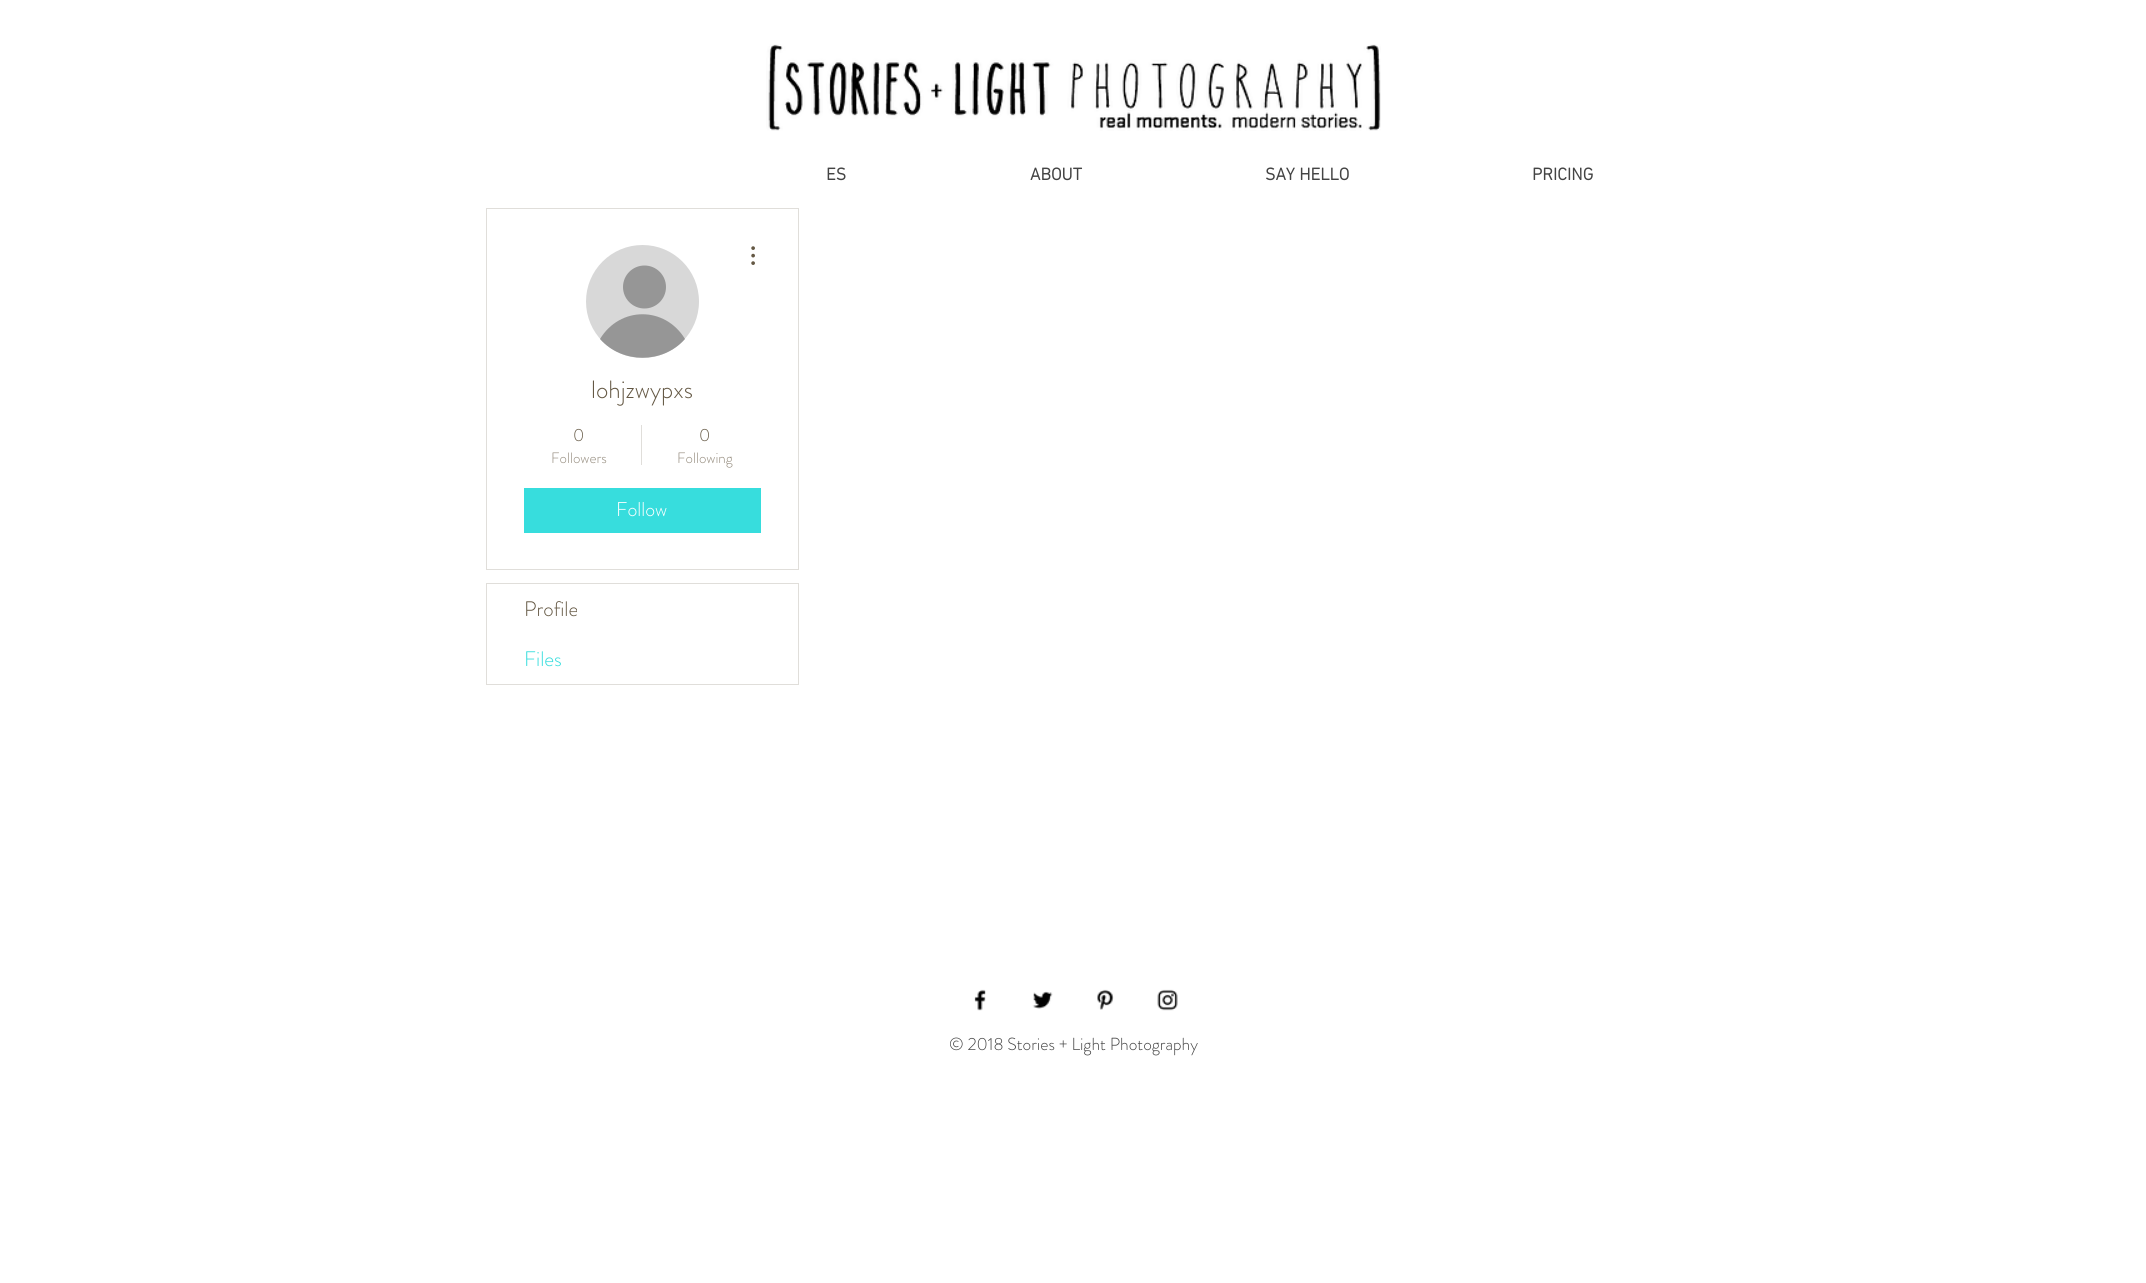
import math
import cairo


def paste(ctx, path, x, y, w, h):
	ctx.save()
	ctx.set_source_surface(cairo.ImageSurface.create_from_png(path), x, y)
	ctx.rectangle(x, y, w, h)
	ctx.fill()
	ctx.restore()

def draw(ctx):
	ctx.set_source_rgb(1, 1, 1)
	ctx.paint()
	paste(ctx, 'media/1.png', 766, 44, 615, 87)
	ctx.select_font_face('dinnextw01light', cairo.FONT_SLANT_NORMAL, cairo.FONT_WEIGHT_BOLD)
	ctx.set_font_size(17.5)
	ctx.set_source_rgb(0.267, 0.267, 0.267)
	for x, y, s in [
		(826, 180, 'ES'),
		(1030, 180, 'ABOUT'),
		(1265, 180, 'SAY HELLO'),
		(1532, 180, 'PRICING'),
	]:
		ctx.move_to(x, y)
		ctx.show_text(s)
	ctx.rectangle(486.5, 208.5, 312, 361)
	ctx.set_source_rgb(0.878, 0.871, 0.855)
	ctx.set_line_width(1)
	ctx.stroke()
	ctx.set_source_rgb(0.847, 0.847, 0.847)
	ctx.arc(642.5, 301.5, 56.5, 0, 2 * math.pi)
	ctx.fill()
	ctx.set_source_rgb(0.588, 0.588, 0.588)
	ctx.arc(644.5, 287, 21.5, 0, 2 * math.pi)
	ctx.fill()
	ctx.new_path()
	ctx.move_to(685, 339)
	ctx.curve_to(663, 364, 622, 364, 600, 339)
	ctx.curve_to(620, 306, 665, 306, 685, 339)
	ctx.close_path()
	ctx.fill()
	paste(ctx, 'media/2.png', 751, 246, 4, 19)
	ctx.select_font_face('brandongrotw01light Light')
	ctx.set_font_size(25)
	ctx.set_source_rgb(0.392, 0.345, 0.267)
	ctx.move_to(591, 398)
	ctx.show_text('lohjzwypxs')
	ctx.set_font_size(17.5)
	ctx.move_to(573, 441)
	ctx.show_text('0')
	ctx.set_font_size(15)
	ctx.set_source_rgb(0.576, 0.541, 0.486)
	ctx.move_to(551, 463)
	ctx.show_text('Followers')
	ctx.set_source_rgb(0.878, 0.871, 0.855)
	ctx.rectangle(641, 425, 1, 40)
	ctx.fill()
	ctx.set_font_size(17.5)
	ctx.set_source_rgb(0.392, 0.345, 0.267)
	ctx.move_to(699, 441)
	ctx.show_text('0')
	ctx.set_font_size(15)
	ctx.set_source_rgb(0.576, 0.541, 0.486)
	ctx.move_to(677, 463)
	ctx.show_text('Following')
	ctx.set_source_rgb(0.216, 0.867, 0.867)
	ctx.rectangle(524, 488, 237, 45)
	ctx.fill()
	ctx.set_font_size(20)
	ctx.set_source_rgb(1, 1, 1)
	ctx.move_to(616, 516)
	ctx.show_text('Follow')
	ctx.rectangle(486.5, 583.5, 312, 101)
	ctx.set_source_rgb(0.878, 0.871, 0.855)
	ctx.stroke()
	ctx.set_font_size(21)
	ctx.set_source_rgb(0.392, 0.345, 0.267)
	ctx.move_to(524, 616)
	ctx.show_text('Profile')
	ctx.set_source_rgb(0.216, 0.867, 0.867)
	ctx.move_to(524, 666)
	ctx.show_text('Files')
	paste(ctx, 'media/3.png', 974, 989, 12, 22)
	paste(ctx, 'media/4.png', 1032, 991, 21, 18)
	paste(ctx, 'media/5.png', 1097, 989, 17, 21)
	paste(ctx, 'media/6.png', 1157, 989, 21, 22)
	ctx.set_font_size(17.5)
	ctx.set_source_rgb(0.267, 0.267, 0.267)
	ctx.move_to(949, 1050)
	ctx.show_text('© 2018 Stories + Light Photography')


surface = cairo.ImageSurface(cairo.FORMAT_RGB24, 2146, 1283)
ctx = cairo.Context(surface)
options = cairo.FontOptions()
options.set_hint_metrics(cairo.HINT_METRICS_OFF)
options.set_hint_style(cairo.HINT_STYLE_NONE)
ctx.set_font_options(options)
ctx.set_miter_limit(4)
draw(ctx)
surface.write_to_png('image.png')
